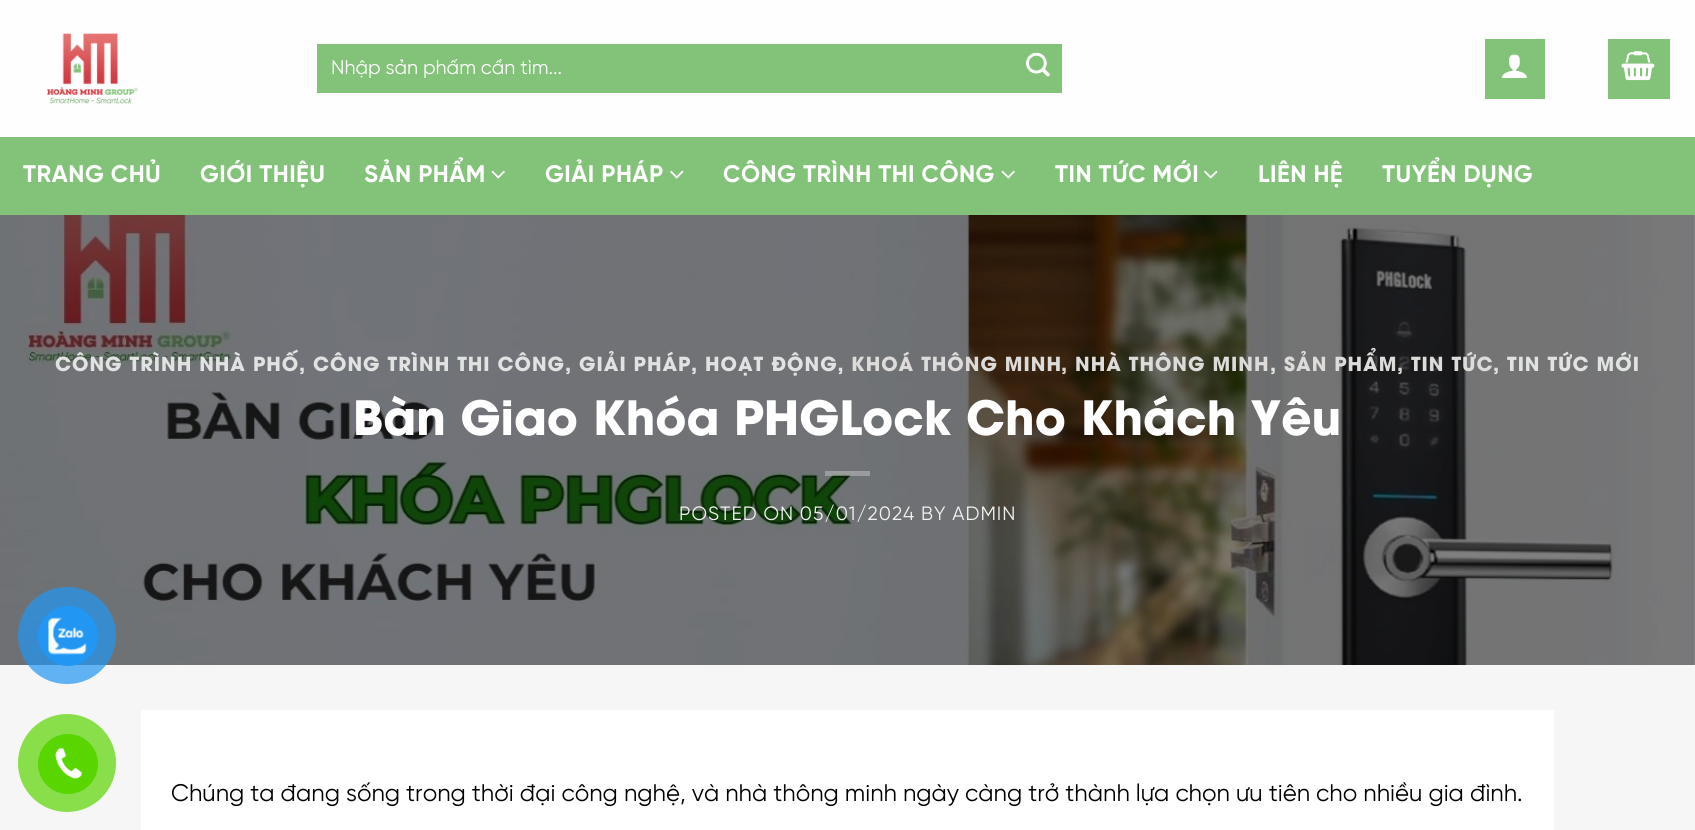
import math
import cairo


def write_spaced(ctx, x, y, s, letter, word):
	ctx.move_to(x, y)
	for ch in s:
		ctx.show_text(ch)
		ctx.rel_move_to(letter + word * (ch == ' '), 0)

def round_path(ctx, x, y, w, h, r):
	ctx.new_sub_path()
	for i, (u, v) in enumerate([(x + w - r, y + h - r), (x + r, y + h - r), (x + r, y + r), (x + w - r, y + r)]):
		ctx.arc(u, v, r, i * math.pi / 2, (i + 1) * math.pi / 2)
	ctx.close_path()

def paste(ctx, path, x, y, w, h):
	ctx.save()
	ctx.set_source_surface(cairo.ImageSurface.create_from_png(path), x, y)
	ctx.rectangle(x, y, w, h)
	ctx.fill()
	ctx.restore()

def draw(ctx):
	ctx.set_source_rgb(0.961, 0.961, 0.961)
	ctx.paint()
	ctx.set_source_rgba(1, 1, 1, 0.9)
	ctx.rectangle(0, 0, 1695, 137)
	ctx.fill()
	paste(ctx, 'media/1.png', 47, 33, 91, 71)
	ctx.set_source_rgb(0.514, 0.761, 0.475)
	ctx.rectangle(317, 44, 745, 49)
	ctx.fill()
	ctx.save()
	ctx.rectangle(332, 59, 660, 21)
	ctx.clip()
	ctx.select_font_face('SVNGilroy')
	ctx.set_font_size(19.75)
	ctx.set_source_rgb(1, 1, 1)
	ctx.move_to(331, 74)
	ctx.show_text('Nhập sản phẩm cần tìm...')
	ctx.restore()
	paste(ctx, 'media/2.png', 1026, 52, 24, 25)
	ctx.rectangle(1485, 39, 60, 60)
	ctx.fill()
	paste(ctx, 'media/3.png', 1501, 54, 26, 24)
	ctx.rectangle(1608, 39, 62, 60)
	ctx.fill()
	paste(ctx, 'media/4.png', 1621, 51, 34, 30)
	ctx.rectangle(0, 137, 1695, 78)
	ctx.fill()
	ctx.select_font_face('SVNGilroy', cairo.FONT_SLANT_NORMAL, cairo.FONT_WEIGHT_BOLD)
	ctx.set_font_size(24)
	ctx.set_source_rgb(1, 1, 1)
	for x, y, s in [
		(23, 182, 'TRANG CHỦ'),
		(200, 182, 'GIỚI THIỆU'),
		(364, 182, 'SẢN PHẨM'),
	]:
		write_spaced(ctx, x, y, s, 0.5, 0)
	paste(ctx, 'media/5.png', 491, 170, 14, 9)
	write_spaced(ctx, 545, 182, 'GIẢI PHÁP', 0.5, 0)
	paste(ctx, 'media/6.png', 670, 170, 14, 9)
	write_spaced(ctx, 723, 182, 'CÔNG TRÌNH THI CÔNG', 0.5, 0)
	paste(ctx, 'media/5.png', 1001, 170, 14, 9)
	write_spaced(ctx, 1055, 182, 'TIN TỨC MỚI', 0.5, 0)
	paste(ctx, 'media/6.png', 1204, 170, 14, 9)
	write_spaced(ctx, 1258, 182, 'LIÊN HỆ', 0.5, 0)
	write_spaced(ctx, 1382, 182, 'TUYỂN DỤNG', 0.5, 0)
	paste(ctx, 'media/7.png', 0, 215, 1695, 450)
	ctx.select_font_face('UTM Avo', cairo.FONT_SLANT_NORMAL, cairo.FONT_WEIGHT_BOLD)
	ctx.set_font_size(19.3)
	ctx.set_source_rgb(0.882, 0.886, 0.886)
	for x, y, s in [
		(55, 371, 'CÔNG TRÌNH NHÀ PHỐ'),
		(299, 371, ','),
		(313, 371, 'CÔNG TRÌNH THI CÔNG, GIẢI PHÁP'),
		(691, 371, ','),
		(705, 371, 'HOẠT ĐỘNG,'),
	]:
		write_spaced(ctx, x, y, s, 1, 0)
	ctx.set_source_rgb(0.871, 0.863, 0.859)
	write_spaced(ctx, 851, 371, 'KHOÁ THÔNG MINH', 1, 0)
	ctx.set_source_rgb(0.843, 0.827, 0.812)
	write_spaced(ctx, 1061, 371, ',', 1, 0)
	ctx.set_source_rgb(0.871, 0.863, 0.859)
	write_spaced(ctx, 1075, 371, 'NHÀ THÔNG MINH', 1, 0)
	ctx.set_source_rgb(0.882, 0.886, 0.886)
	write_spaced(ctx, 1270, 371, ',', 1, 0)
	ctx.set_source_rgb(0.871, 0.863, 0.859)
	write_spaced(ctx, 1284, 371, 'SẢN PHẨM', 1, 0)
	ctx.set_source_rgb(0.843, 0.827, 0.812)
	write_spaced(ctx, 1397, 371, ',', 1, 0)
	ctx.set_source_rgb(0.871, 0.863, 0.859)
	write_spaced(ctx, 1411, 371, 'TIN TỨC', 1, 0)
	ctx.set_source_rgb(0.882, 0.886, 0.886)
	write_spaced(ctx, 1493, 371, ', TIN TỨC MỚI', 1, 0)
	ctx.set_font_size(46.9)
	ctx.set_source_rgb(1, 1, 1)
	ctx.move_to(353, 435)
	ctx.show_text('Bàn Giao Khóa PHGLock Cho Khách Yêu')
	ctx.set_source_rgba(1, 1, 1, 0.3)
	ctx.rectangle(825, 471, 45, 5)
	ctx.fill()
	ctx.select_font_face('SVNGilroy')
	ctx.set_font_size(19.3)
	ctx.set_source_rgb(0.945, 0.945, 0.945)
	write_spaced(ctx, 679, 520, 'POSTED ON 05/01/2024 BY ADMIN', 1, 0)
	ctx.set_source_rgb(1, 1, 1)
	ctx.rectangle(141, 710, 1413, 120)
	ctx.fill()
	ctx.set_font_size(24)
	ctx.set_source_rgb(0, 0, 0)
	ctx.move_to(171, 801)
	ctx.show_text('Chúng ta đang sống trong thời đại công nghệ, và nhà thông minh ngày càng trở thành lựa chọn ưu tiên cho nhiều gia đình.')
	ctx.set_source_rgba(0.129, 0.588, 0.953, 0.7)
	round_path(ctx, 18, 587, 98, 97, 48.5)
	ctx.fill()
	ctx.set_source_rgb(0.129, 0.588, 0.953)
	ctx.arc(68, 636, 30, 0, 2 * math.pi)
	ctx.fill()
	paste(ctx, 'media/8.png', 48, 617, 39, 38)
	ctx.set_source_rgb(0.533, 0.875, 0.29)
	ctx.arc(67, 763, 49, 0, 2 * math.pi)
	ctx.fill()
	ctx.set_source_rgb(0.349, 0.839, 0)
	ctx.arc(68, 764, 30, 0, 2 * math.pi)
	ctx.fill()
	paste(ctx, 'media/9.png', 55, 747, 27, 32)


surface = cairo.ImageSurface(cairo.FORMAT_RGB24, 1695, 830)
ctx = cairo.Context(surface)
options = cairo.FontOptions()
options.set_hint_metrics(cairo.HINT_METRICS_OFF)
options.set_hint_style(cairo.HINT_STYLE_NONE)
ctx.set_font_options(options)
ctx.set_miter_limit(4)
draw(ctx)
surface.write_to_png('image.png')
